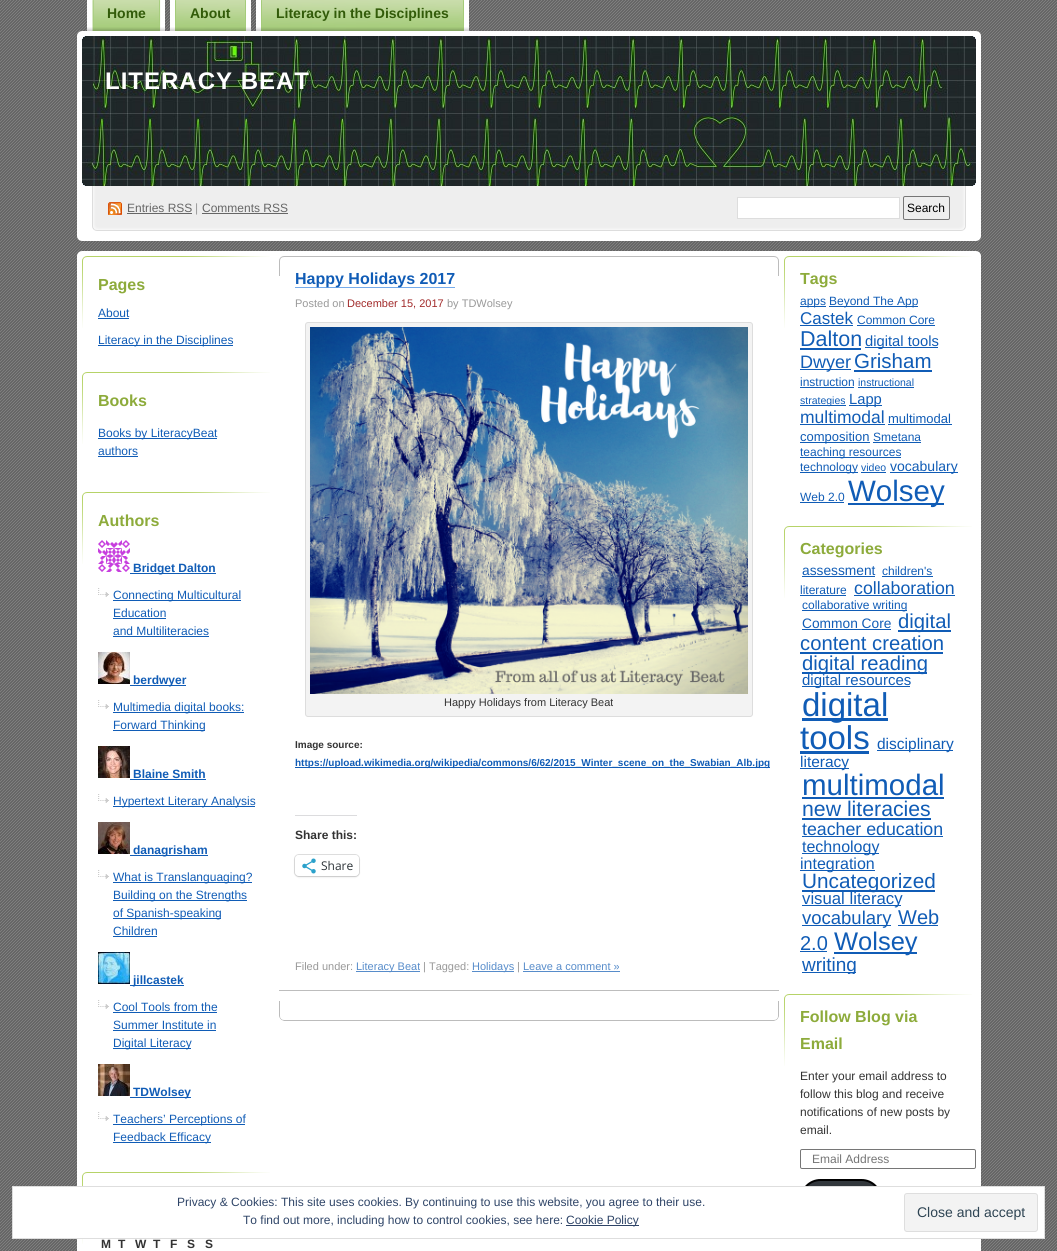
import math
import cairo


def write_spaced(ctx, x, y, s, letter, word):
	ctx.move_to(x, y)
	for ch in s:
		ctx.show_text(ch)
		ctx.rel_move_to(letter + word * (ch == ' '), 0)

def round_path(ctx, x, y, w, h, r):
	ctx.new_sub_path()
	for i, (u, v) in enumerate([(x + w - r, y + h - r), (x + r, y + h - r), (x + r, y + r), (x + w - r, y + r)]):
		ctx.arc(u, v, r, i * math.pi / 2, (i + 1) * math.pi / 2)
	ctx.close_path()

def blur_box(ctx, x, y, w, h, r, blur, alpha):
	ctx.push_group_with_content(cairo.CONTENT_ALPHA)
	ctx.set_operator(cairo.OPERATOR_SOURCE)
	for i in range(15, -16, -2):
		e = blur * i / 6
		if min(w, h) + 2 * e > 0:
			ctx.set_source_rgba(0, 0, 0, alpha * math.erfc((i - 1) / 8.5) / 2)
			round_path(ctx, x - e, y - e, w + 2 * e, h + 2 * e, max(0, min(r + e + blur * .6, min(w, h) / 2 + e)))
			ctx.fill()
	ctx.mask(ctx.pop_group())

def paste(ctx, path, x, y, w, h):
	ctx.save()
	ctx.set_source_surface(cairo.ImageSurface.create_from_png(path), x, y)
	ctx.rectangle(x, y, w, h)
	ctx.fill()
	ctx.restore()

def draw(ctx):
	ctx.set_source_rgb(1, 1, 1)
	ctx.paint()
	paste(ctx, 'media/1.png', 0, 0, 1057, 1251)
	paste(ctx, 'media/2.png', 94, 0, 71, 31)
	paste(ctx, 'media/3.png', 87, 0, 7, 31)
	ctx.select_font_face('Liberation Sans', cairo.FONT_SLANT_NORMAL, cairo.FONT_WEIGHT_BOLD)
	ctx.set_font_size(14)
	ctx.set_source_rgb(0.196, 0.357, 0.039)
	ctx.move_to(107, 18)
	ctx.show_text('Home')
	paste(ctx, 'media/4.png', 176, 0, 75, 31)
	paste(ctx, 'media/5.png', 170, 0, 6, 31)
	ctx.move_to(190, 18)
	ctx.show_text('About')
	paste(ctx, 'media/6.png', 262, 0, 207, 31)
	paste(ctx, 'media/5.png', 256, 0, 6, 31)
	ctx.move_to(276, 18)
	ctx.show_text('Literacy in the Disciplines')
	paste(ctx, 'media/8.png', 82, 36, 894, 150)
	paste(ctx, 'media/7.png', 77, 31, 904, 210)
	ctx.set_font_size(24)
	ctx.set_source_rgb(1, 1, 1)
	write_spaced(ctx, 105, 89, 'LITERACY BEAT', 1, 0)
	paste(ctx, 'media/9.png', 108, 202, 14, 13)
	ctx.select_font_face('Liberation Sans')
	ctx.set_font_size(12)
	ctx.set_source_rgb(0.4, 0.4, 0.4)
	ctx.move_to(127, 212)
	ctx.show_text('Entries RSS')
	ctx.rectangle(127, 213, 65, 1)
	ctx.fill()
	ctx.set_source_rgb(0.6, 0.6, 0.6)
	ctx.move_to(195, 212)
	ctx.show_text('|')
	ctx.set_source_rgb(0.4, 0.4, 0.4)
	ctx.move_to(202, 212)
	ctx.show_text('Comments RSS')
	ctx.rectangle(202, 213, 86, 1)
	ctx.fill()
	ctx.set_source_rgb(1, 1, 1)
	ctx.rectangle(737.5, 197.5, 162, 21)
	ctx.fill_preserve()
	ctx.set_source_rgb(0.867, 0.867, 0.867)
	ctx.set_line_width(1)
	ctx.stroke()
	round_path(ctx, 903.5, 196.5, 46, 23, 1.5)
	ctx.set_source_rgb(0.463, 0.463, 0.463)
	ctx.stroke()
	ctx.set_source_rgb(0, 0, 0)
	ctx.move_to(907, 212)
	ctx.show_text('Search')
	ctx.set_source_rgb(1, 1, 1)
	ctx.rectangle(77, 256, 904, 995)
	ctx.fill()
	paste(ctx, 'media/10.png', 77, 251, 904, 5)
	paste(ctx, 'media/11.png', 82, 256, 188, 72)
	ctx.select_font_face('Liberation Sans', cairo.FONT_SLANT_NORMAL, cairo.FONT_WEIGHT_BOLD)
	ctx.set_font_size(16)
	ctx.set_source_rgb(0.553, 0.671, 0.231)
	ctx.move_to(98, 290)
	ctx.show_text('Pages')
	ctx.select_font_face('Liberation Sans')
	ctx.set_font_size(12)
	ctx.set_source_rgb(0.063, 0.361, 0.714)
	ctx.move_to(98, 317)
	ctx.show_text('About')
	ctx.rectangle(98, 318, 31, 1)
	ctx.fill()
	ctx.rectangle(98, 345, 135, 1)
	ctx.fill()
	ctx.move_to(98, 344)
	ctx.show_text('Literacy in the Disciplines')
	paste(ctx, 'media/11.png', 82, 372, 188, 72)
	ctx.select_font_face('Liberation Sans', cairo.FONT_SLANT_NORMAL, cairo.FONT_WEIGHT_BOLD)
	ctx.set_font_size(16)
	ctx.set_source_rgb(0.553, 0.671, 0.231)
	ctx.move_to(98, 406)
	ctx.show_text('Books')
	ctx.set_source_rgb(0.063, 0.361, 0.714)
	ctx.rectangle(98, 438, 119, 1)
	ctx.fill()
	ctx.select_font_face('Liberation Sans')
	ctx.set_font_size(12)
	ctx.move_to(98, 437)
	ctx.show_text('Books by LiteracyBeat')
	ctx.move_to(98, 455)
	ctx.show_text('authors')
	ctx.rectangle(98, 456, 40, 1)
	ctx.fill()
	paste(ctx, 'media/11.png', 82, 492, 188, 72)
	ctx.select_font_face('Liberation Sans', cairo.FONT_SLANT_NORMAL, cairo.FONT_WEIGHT_BOLD)
	ctx.set_font_size(16)
	ctx.set_source_rgb(0.553, 0.671, 0.231)
	ctx.move_to(98, 526)
	ctx.show_text('Authors')
	paste(ctx, 'media/12.png', 98, 540, 32, 32)
	ctx.set_source_rgb(0.063, 0.361, 0.714)
	ctx.rectangle(130, 573, 86, 1)
	ctx.fill()
	ctx.set_font_size(12)
	ctx.move_to(133, 572)
	ctx.show_text('Bridget Dalton')
	paste(ctx, 'media/13.png', 98, 588, 11, 9)
	ctx.rectangle(113, 600, 128, 1)
	ctx.fill()
	ctx.select_font_face('Liberation Sans')
	ctx.move_to(113, 599)
	ctx.show_text('Connecting Multicultural')
	ctx.move_to(113, 617)
	ctx.show_text('Education')
	ctx.rectangle(113, 618, 53, 1)
	ctx.fill()
	ctx.move_to(113, 635)
	ctx.show_text('and Multiliteracies')
	ctx.rectangle(113, 636, 96, 1)
	ctx.fill()
	paste(ctx, 'media/14.png', 98, 652, 32, 32)
	ctx.rectangle(130, 685, 56, 1)
	ctx.fill()
	ctx.select_font_face('Liberation Sans', cairo.FONT_SLANT_NORMAL, cairo.FONT_WEIGHT_BOLD)
	ctx.move_to(133, 684)
	ctx.show_text('berdwyer')
	paste(ctx, 'media/13.png', 98, 700, 11, 9)
	ctx.rectangle(113, 712, 131, 1)
	ctx.fill()
	ctx.select_font_face('Liberation Sans')
	ctx.move_to(113, 711)
	ctx.show_text('Multimedia digital books:')
	ctx.rectangle(113, 730, 92, 1)
	ctx.fill()
	ctx.move_to(113, 729)
	ctx.show_text('Forward Thinking')
	paste(ctx, 'media/15.png', 98, 746, 32, 32)
	ctx.select_font_face('Liberation Sans', cairo.FONT_SLANT_NORMAL, cairo.FONT_WEIGHT_BOLD)
	ctx.move_to(133, 778)
	ctx.show_text('Blaine Smith')
	ctx.rectangle(130, 779, 76, 1)
	ctx.fill()
	paste(ctx, 'media/13.png', 98, 794, 11, 9)
	ctx.rectangle(113, 806, 142, 1)
	ctx.fill()
	ctx.select_font_face('Liberation Sans')
	ctx.move_to(113, 805)
	ctx.show_text('Hypertext Literary Analysis')
	paste(ctx, 'media/16.png', 98, 822, 32, 32)
	ctx.rectangle(130, 855, 78, 1)
	ctx.fill()
	ctx.select_font_face('Liberation Sans', cairo.FONT_SLANT_NORMAL, cairo.FONT_WEIGHT_BOLD)
	ctx.move_to(133, 854)
	ctx.show_text('danagrisham')
	paste(ctx, 'media/13.png', 98, 870, 11, 9)
	ctx.rectangle(113, 882, 139, 1)
	ctx.fill()
	ctx.select_font_face('Liberation Sans')
	ctx.move_to(113, 881)
	ctx.show_text('What is Translanguaging?')
	ctx.rectangle(113, 900, 134, 1)
	ctx.fill()
	ctx.move_to(113, 899)
	ctx.show_text('Building on the Strengths')
	ctx.rectangle(113, 918, 108, 1)
	ctx.fill()
	ctx.move_to(113, 917)
	ctx.show_text('of Spanish-speaking')
	ctx.move_to(113, 935)
	ctx.show_text('Children')
	ctx.rectangle(113, 936, 44, 1)
	ctx.fill()
	paste(ctx, 'media/17.png', 98, 952, 32, 32)
	ctx.rectangle(130, 985, 54, 1)
	ctx.fill()
	ctx.select_font_face('Liberation Sans', cairo.FONT_SLANT_NORMAL, cairo.FONT_WEIGHT_BOLD)
	ctx.move_to(133, 984)
	ctx.show_text('jillcastek')
	paste(ctx, 'media/13.png', 98, 1000, 11, 9)
	ctx.select_font_face('Liberation Sans')
	ctx.move_to(113, 1011)
	ctx.show_text('Cool Tools from the')
	ctx.rectangle(113, 1012, 104, 1)
	ctx.fill()
	ctx.move_to(113, 1029)
	ctx.show_text('Summer Institute in')
	ctx.rectangle(113, 1030, 103, 1)
	ctx.fill()
	ctx.rectangle(113, 1048, 78, 1)
	ctx.fill()
	ctx.move_to(113, 1047)
	ctx.show_text('Digital Literacy')
	paste(ctx, 'media/18.png', 98, 1064, 32, 32)
	ctx.rectangle(130, 1097, 61, 1)
	ctx.fill()
	ctx.select_font_face('Liberation Sans', cairo.FONT_SLANT_NORMAL, cairo.FONT_WEIGHT_BOLD)
	ctx.move_to(133, 1096)
	ctx.show_text('TDWolsey')
	paste(ctx, 'media/13.png', 98, 1112, 11, 9)
	ctx.rectangle(113, 1124, 132, 1)
	ctx.fill()
	ctx.select_font_face('Liberation Sans')
	ctx.move_to(113, 1123)
	ctx.show_text('Teachers’ Perceptions of')
	ctx.rectangle(113, 1142, 98, 1)
	ctx.fill()
	ctx.move_to(113, 1141)
	ctx.show_text('Feedback Efficacy')
	paste(ctx, 'media/11.png', 82, 1172, 188, 72)
	ctx.select_font_face('Liberation Sans', cairo.FONT_SLANT_NORMAL, cairo.FONT_WEIGHT_BOLD)
	ctx.set_source_rgb(0.2, 0.2, 0.2)
	for x, y, s in [
		(101, 1248, 'M'),
		(118, 1248, 'T'),
		(135, 1248, 'W'),
		(153, 1248, 'T'),
		(170, 1248, 'F'),
		(187, 1248, 'S'),
		(205, 1248, 'S'),
	]:
		ctx.move_to(x, y)
		ctx.show_text(s)
	paste(ctx, 'media/19.png', 279, 1001, 500, 20)
	paste(ctx, 'media/20.png', 279, 256, 500, 20)
	ctx.set_source_rgb(0.459, 0.671, 0.918)
	ctx.rectangle(295, 287, 160, 1)
	ctx.fill()
	ctx.set_font_size(16)
	ctx.set_source_rgb(0.063, 0.361, 0.714)
	ctx.move_to(295, 284)
	ctx.show_text('Happy Holidays 2017')
	ctx.select_font_face('Liberation Sans')
	ctx.set_font_size(11)
	ctx.set_source_rgb(0.6, 0.6, 0.6)
	ctx.move_to(295, 307)
	ctx.show_text('Posted on')
	ctx.set_source_rgb(0.631, 0.165, 0.165)
	ctx.move_to(347, 307)
	ctx.show_text('December 15, 2017')
	ctx.set_source_rgb(0.6, 0.6, 0.6)
	ctx.move_to(447, 307)
	ctx.show_text('by TDWolsey')
	ctx.set_source_rgb(0.953, 0.953, 0.953)
	round_path(ctx, 305.5, 322.5, 447, 394, 2.5)
	ctx.fill_preserve()
	ctx.set_source_rgb(0.867, 0.867, 0.867)
	ctx.stroke()
	paste(ctx, 'media/21.png', 310, 327, 438, 367)
	ctx.set_source_rgb(0.2, 0.2, 0.2)
	ctx.move_to(444, 706)
	ctx.show_text('Happy Holidays from Literacy Beat')
	ctx.select_font_face('Liberation Sans', cairo.FONT_SLANT_NORMAL, cairo.FONT_WEIGHT_BOLD)
	ctx.set_font_size(10)
	ctx.move_to(295, 748)
	ctx.show_text('Image source:')
	ctx.set_source_rgb(0.063, 0.361, 0.714)
	ctx.rectangle(295, 767, 475, 1)
	ctx.fill()
	ctx.move_to(295, 766)
	ctx.show_text('https://upload.wikimedia.org/wikipedia/commons/6/62/2015_Winter_scene_on_the_Swabian_Alb.jpg')
	ctx.set_source_rgb(0.863, 0.863, 0.871)
	ctx.rectangle(295, 815, 62, 1)
	ctx.fill()
	ctx.set_font_size(12)
	ctx.set_source_rgb(0.2, 0.2, 0.2)
	ctx.move_to(295, 839)
	ctx.show_text('Share this:')
	round_path(ctx, 294.5, 854.5, 65, 22, 4.5)
	ctx.set_source_rgb(0.878, 0.878, 0.878)
	ctx.stroke()
	ctx.set_source_rgb(0, 0, 0)
	blur_box(ctx, 295, 856, 64, 21, 4, 1, 0.12)
	ctx.set_source_rgb(1, 1, 1)
	round_path(ctx, 295, 855, 64, 21, 4)
	ctx.fill()
	paste(ctx, 'media/22.png', 302, 858, 14, 16)
	ctx.select_font_face('Open Sans')
	ctx.set_source_rgb(0.173, 0.2, 0.22)
	ctx.move_to(321, 870)
	ctx.show_text('Share')
	ctx.select_font_face('Liberation Sans')
	ctx.set_font_size(11)
	ctx.set_source_rgb(0.6, 0.6, 0.6)
	ctx.move_to(295, 970)
	ctx.show_text('Filed under:')
	ctx.set_source_rgb(0.341, 0.549, 0.792)
	ctx.rectangle(356, 971, 64, 1)
	ctx.fill()
	ctx.move_to(356, 970)
	ctx.show_text('Literacy Beat')
	ctx.set_source_rgb(0.6, 0.6, 0.6)
	ctx.move_to(423, 970)
	ctx.show_text('| Tagged:')
	ctx.set_source_rgb(0.341, 0.549, 0.792)
	ctx.rectangle(472, 971, 42, 1)
	ctx.fill()
	ctx.move_to(472, 970)
	ctx.show_text('Holidays')
	ctx.set_source_rgb(0.6, 0.6, 0.6)
	ctx.move_to(517, 970)
	ctx.show_text('|')
	ctx.set_source_rgb(0.341, 0.549, 0.792)
	ctx.move_to(523, 970)
	ctx.show_text('Leave a comment »')
	ctx.rectangle(523, 971, 97, 1)
	ctx.fill()
	ctx.set_source_rgb(0.741, 0.741, 0.741)
	ctx.rectangle(279, 990, 500, 1)
	ctx.fill()
	paste(ctx, 'media/11.png', 784, 256, 188, 72)
	ctx.select_font_face('Liberation Sans', cairo.FONT_SLANT_NORMAL, cairo.FONT_WEIGHT_BOLD)
	ctx.set_font_size(16)
	ctx.set_source_rgb(0.553, 0.671, 0.231)
	ctx.move_to(800, 284)
	ctx.show_text('Tags')
	ctx.set_source_rgb(0.063, 0.361, 0.714)
	ctx.rectangle(800, 306, 26, 1)
	ctx.fill()
	ctx.select_font_face('Liberation Sans')
	ctx.set_font_size(12)
	ctx.move_to(800, 305)
	ctx.show_text('apps')
	ctx.rectangle(829, 306, 89, 1)
	ctx.fill()
	ctx.move_to(829, 305)
	ctx.show_text('Beyond The App')
	ctx.set_font_size(17)
	ctx.move_to(800, 324)
	ctx.show_text('Castek')
	ctx.rectangle(800, 325, 53, 1)
	ctx.fill()
	ctx.set_font_size(12)
	ctx.move_to(857, 324)
	ctx.show_text('Common Core')
	ctx.rectangle(857, 325, 78, 1)
	ctx.fill()
	ctx.set_font_size(21.5)
	ctx.move_to(800, 346)
	ctx.show_text('Dalton')
	ctx.rectangle(800, 348, 61, 2)
	ctx.fill()
	ctx.rectangle(865, 347, 73, 1)
	ctx.fill()
	ctx.set_font_size(14.75)
	ctx.move_to(865, 346)
	ctx.show_text('digital tools')
	ctx.rectangle(800, 369, 51, 1)
	ctx.fill()
	ctx.set_font_size(18)
	ctx.move_to(800, 368)
	ctx.show_text('Dwyer')
	ctx.set_font_size(20.5)
	ctx.move_to(854, 368)
	ctx.show_text('Grisham')
	ctx.rectangle(854, 370, 78, 2)
	ctx.fill()
	ctx.set_font_size(12)
	ctx.move_to(800, 386)
	ctx.show_text('instruction')
	ctx.rectangle(800, 387, 54, 1)
	ctx.fill()
	ctx.set_font_size(10.5)
	ctx.move_to(858, 386)
	ctx.show_text('instructional')
	ctx.rectangle(858, 387, 56, 1)
	ctx.fill()
	ctx.rectangle(800, 405, 46, 1)
	ctx.fill()
	ctx.move_to(800, 404)
	ctx.show_text('strategies')
	ctx.rectangle(849, 405, 33, 1)
	ctx.fill()
	ctx.set_font_size(14.75)
	ctx.move_to(849, 404)
	ctx.show_text('Lapp')
	ctx.set_font_size(17.5)
	ctx.move_to(800, 423)
	ctx.show_text('multimodal')
	ctx.rectangle(800, 424, 85, 1)
	ctx.fill()
	ctx.set_font_size(13)
	ctx.move_to(888, 423)
	ctx.show_text('multimodal')
	ctx.rectangle(888, 424, 64, 1)
	ctx.fill()
	ctx.rectangle(800, 442, 70, 1)
	ctx.fill()
	ctx.move_to(800, 441)
	ctx.show_text('composition')
	ctx.set_font_size(12)
	ctx.move_to(873, 441)
	ctx.show_text('Smetana')
	ctx.rectangle(873, 442, 48, 1)
	ctx.fill()
	ctx.rectangle(800, 457, 101, 1)
	ctx.fill()
	ctx.move_to(800, 456)
	ctx.show_text('teaching resources')
	ctx.rectangle(800, 472, 58, 1)
	ctx.fill()
	ctx.move_to(800, 471)
	ctx.show_text('technology')
	ctx.set_font_size(10.5)
	ctx.move_to(861, 471)
	ctx.show_text('video')
	ctx.rectangle(861, 472, 25, 1)
	ctx.fill()
	ctx.rectangle(890, 472, 68, 1)
	ctx.fill()
	ctx.set_font_size(14)
	ctx.move_to(890, 471)
	ctx.show_text('vocabulary')
	ctx.set_font_size(12)
	ctx.move_to(800, 501)
	ctx.show_text('Web 2.0')
	ctx.rectangle(800, 502, 44, 1)
	ctx.fill()
	ctx.rectangle(848, 503, 96, 2)
	ctx.fill()
	ctx.set_font_size(29.5)
	ctx.move_to(848, 501)
	ctx.show_text('Wolsey')
	paste(ctx, 'media/11.png', 784, 526, 188, 72)
	ctx.select_font_face('Liberation Sans', cairo.FONT_SLANT_NORMAL, cairo.FONT_WEIGHT_BOLD)
	ctx.set_font_size(16)
	ctx.set_source_rgb(0.553, 0.671, 0.231)
	ctx.move_to(800, 554)
	ctx.show_text('Categories')
	ctx.select_font_face('Liberation Sans')
	ctx.set_font_size(13.75)
	ctx.set_source_rgb(0.063, 0.361, 0.714)
	ctx.move_to(802, 575)
	ctx.show_text('assessment')
	ctx.rectangle(802, 576, 73, 1)
	ctx.fill()
	ctx.set_font_size(12)
	ctx.move_to(882, 575)
	ctx.show_text('children\'s')
	ctx.rectangle(882, 576, 51, 1)
	ctx.fill()
	ctx.move_to(800, 594)
	ctx.show_text('literature')
	ctx.rectangle(800, 595, 46, 1)
	ctx.fill()
	ctx.set_font_size(17.75)
	ctx.move_to(854, 594)
	ctx.show_text('collaboration')
	ctx.rectangle(854, 595, 101, 1)
	ctx.fill()
	ctx.rectangle(802, 610, 105, 1)
	ctx.fill()
	ctx.set_font_size(12)
	ctx.move_to(802, 609)
	ctx.show_text('collaborative writing')
	ctx.set_font_size(13.75)
	ctx.move_to(802, 628)
	ctx.show_text('Common Core')
	ctx.rectangle(802, 629, 89, 1)
	ctx.fill()
	ctx.rectangle(898, 630, 53, 2)
	ctx.fill()
	ctx.set_font_size(20.25)
	ctx.move_to(898, 628)
	ctx.show_text('digital')
	ctx.move_to(800, 650)
	ctx.show_text('content creation')
	ctx.rectangle(800, 652, 143, 2)
	ctx.fill()
	ctx.rectangle(802, 672, 125, 2)
	ctx.fill()
	ctx.move_to(802, 670)
	ctx.show_text('digital reading')
	ctx.rectangle(802, 686, 108, 1)
	ctx.fill()
	ctx.set_font_size(15)
	ctx.move_to(802, 685)
	ctx.show_text('digital resources')
	ctx.rectangle(802, 718, 86, 3)
	ctx.fill()
	ctx.set_font_size(33)
	ctx.move_to(802, 716)
	ctx.show_text('digital')
	ctx.move_to(800, 749)
	ctx.show_text('tools')
	ctx.rectangle(800, 751, 69, 3)
	ctx.fill()
	ctx.rectangle(877, 750, 76, 1)
	ctx.fill()
	ctx.set_font_size(15.5)
	ctx.move_to(877, 749)
	ctx.show_text('disciplinary')
	ctx.rectangle(800, 768, 49, 1)
	ctx.fill()
	ctx.move_to(800, 767)
	ctx.show_text('literacy')
	ctx.set_font_size(29.5)
	ctx.move_to(802, 795)
	ctx.show_text('multimodal')
	ctx.rectangle(802, 797, 142, 2)
	ctx.fill()
	ctx.set_font_size(21.25)
	ctx.move_to(802, 816)
	ctx.show_text('new literacies')
	ctx.rectangle(802, 818, 129, 2)
	ctx.fill()
	ctx.set_font_size(17.75)
	ctx.move_to(802, 835)
	ctx.show_text('teacher education')
	ctx.rectangle(802, 836, 141, 1)
	ctx.fill()
	ctx.rectangle(802, 853, 77, 1)
	ctx.fill()
	ctx.set_font_size(16)
	ctx.move_to(802, 852)
	ctx.show_text('technology')
	ctx.rectangle(800, 870, 75, 1)
	ctx.fill()
	ctx.move_to(800, 869)
	ctx.show_text('integration')
	ctx.rectangle(802, 890, 133, 2)
	ctx.fill()
	ctx.set_font_size(20.75)
	ctx.move_to(802, 888)
	ctx.show_text('Uncategorized')
	ctx.rectangle(802, 905, 99, 1)
	ctx.fill()
	ctx.set_font_size(16.75)
	ctx.move_to(802, 904)
	ctx.show_text('visual literacy')
	ctx.rectangle(802, 925, 89, 1)
	ctx.fill()
	ctx.set_font_size(18.5)
	ctx.move_to(802, 924)
	ctx.show_text('vocabulary')
	ctx.set_font_size(20)
	ctx.move_to(898, 924)
	ctx.show_text('Web')
	ctx.rectangle(898, 925, 40, 1)
	ctx.fill()
	ctx.move_to(800, 950)
	ctx.show_text('2.0')
	ctx.rectangle(800, 951, 27, 1)
	ctx.fill()
	ctx.rectangle(834, 952, 83, 2)
	ctx.fill()
	ctx.set_font_size(25.5)
	ctx.move_to(834, 950)
	ctx.show_text('Wolsey')
	ctx.rectangle(802, 972, 54, 1)
	ctx.fill()
	ctx.save()
	ctx.rectangle(800, 562, 160, 412)
	ctx.clip()
	ctx.set_font_size(19)
	ctx.move_to(802, 971)
	ctx.show_text('writing')
	ctx.restore()
	paste(ctx, 'media/11.png', 784, 994, 188, 72)
	ctx.select_font_face('Liberation Sans', cairo.FONT_SLANT_NORMAL, cairo.FONT_WEIGHT_BOLD)
	ctx.set_font_size(16)
	ctx.set_source_rgb(0.553, 0.671, 0.231)
	ctx.move_to(800, 1022)
	ctx.show_text('Follow Blog via')
	ctx.move_to(800, 1049)
	ctx.show_text('Email')
	ctx.select_font_face('Liberation Sans')
	ctx.set_font_size(12)
	ctx.set_source_rgb(0.2, 0.2, 0.2)
	for x, y, s in [
		(800, 1080, 'Enter your email address to'),
		(800, 1098, 'follow this blog and receive'),
		(800, 1116, 'notifications of new posts by'),
		(800, 1134, 'email.'),
	]:
		ctx.move_to(x, y)
		ctx.show_text(s)
	round_path(ctx, 800.5, 1149.5, 175, 19, 1.5)
	ctx.set_source_rgb(0.463, 0.463, 0.463)
	ctx.stroke()
	ctx.set_source_rgb(0.459, 0.459, 0.459)
	ctx.move_to(812, 1163)
	ctx.show_text('Email Address')
	ctx.set_source_rgb(0.196, 0.216, 0.235)
	round_path(ctx, 801, 1180, 80, 39, 19.5)
	ctx.fill_preserve()
	ctx.set_source_rgb(0, 0, 0)
	ctx.set_line_width(2)
	ctx.stroke()
	ctx.set_source_rgb(1, 1, 1)
	ctx.rectangle(12.5, 1186.5, 1032, 52)
	ctx.fill_preserve()
	ctx.set_source_rgb(0.871, 0.871, 0.871)
	ctx.set_line_width(1)
	ctx.stroke()
	ctx.set_source_rgb(0.18, 0.267, 0.404)
	ctx.move_to(177, 1206)
	ctx.show_text('Privacy & Cookies: This site uses cookies. By continuing to use this website, you agree to their use.')
	ctx.move_to(243, 1224)
	ctx.show_text('To find out more, including how to control cookies, see here:')
	ctx.rectangle(566, 1225, 73, 1)
	ctx.fill()
	ctx.move_to(566, 1224)
	ctx.show_text('Cookie Policy')
	ctx.set_source_rgb(0.953, 0.953, 0.953)
	round_path(ctx, 904.5, 1193.5, 133, 38, 2.5)
	ctx.fill_preserve()
	ctx.set_source_rgb(0.871, 0.871, 0.871)
	ctx.stroke()
	ctx.set_font_size(14)
	ctx.set_source_rgb(0.18, 0.267, 0.325)
	ctx.move_to(917, 1217)
	ctx.show_text('Close and accept')


surface = cairo.ImageSurface(cairo.FORMAT_RGB24, 1057, 1251)
ctx = cairo.Context(surface)
options = cairo.FontOptions()
options.set_hint_metrics(cairo.HINT_METRICS_OFF)
options.set_hint_style(cairo.HINT_STYLE_NONE)
ctx.set_font_options(options)
ctx.set_miter_limit(4)
draw(ctx)
surface.write_to_png('image.png')
